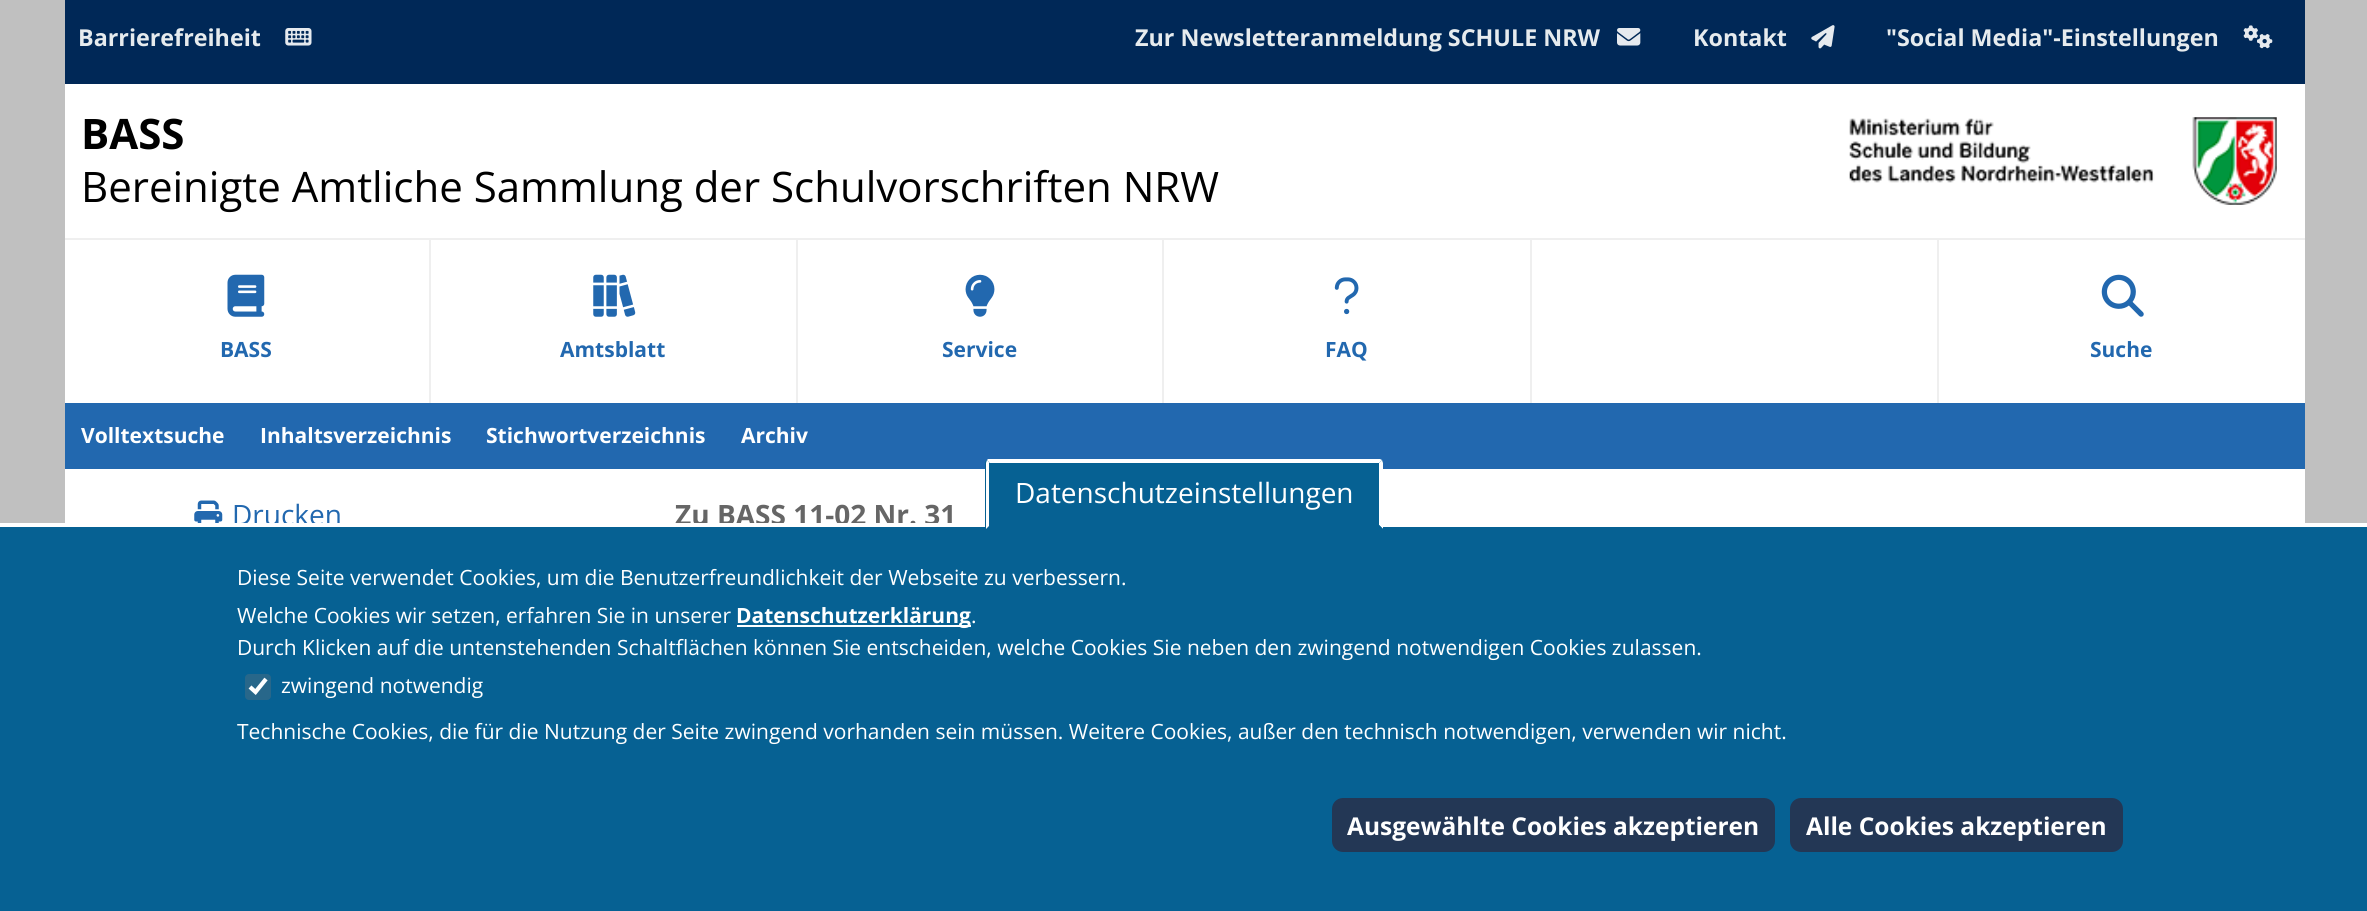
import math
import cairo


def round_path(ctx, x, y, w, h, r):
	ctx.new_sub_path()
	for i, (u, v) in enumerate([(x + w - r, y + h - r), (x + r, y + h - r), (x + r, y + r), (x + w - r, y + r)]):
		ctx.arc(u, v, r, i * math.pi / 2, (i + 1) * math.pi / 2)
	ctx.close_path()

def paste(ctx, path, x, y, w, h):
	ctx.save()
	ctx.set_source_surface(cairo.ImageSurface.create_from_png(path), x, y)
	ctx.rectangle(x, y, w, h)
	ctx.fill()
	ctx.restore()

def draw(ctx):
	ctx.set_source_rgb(0.753, 0.753, 0.753)
	ctx.paint()
	ctx.set_source_rgb(0, 0.157, 0.341)
	ctx.rectangle(65, 0, 2240, 84)
	ctx.fill()
	ctx.select_font_face('Open Sans', cairo.FONT_SLANT_NORMAL, cairo.FONT_WEIGHT_BOLD)
	ctx.set_font_size(23.3)
	ctx.set_source_rgb(0.902, 0.918, 0.933)
	ctx.move_to(78, 46)
	ctx.show_text('Barrierefreiheit')
	paste(ctx, 'media/1.png', 285, 28, 27, 18)
	ctx.move_to(1135, 46)
	ctx.show_text('Zur Newsletteranmeldung SCHULE NRW')
	paste(ctx, 'media/2.png', 1617, 28, 24, 18)
	ctx.move_to(1693, 46)
	ctx.show_text('Kontakt')
	paste(ctx, 'media/3.png', 1811, 25, 24, 24)
	ctx.move_to(1886, 46)
	ctx.show_text('"Social Media"-Einstellungen')
	paste(ctx, 'media/4.png', 2243, 25, 30, 24)
	ctx.set_source_rgb(1, 1, 1)
	ctx.rectangle(65, 84, 2240, 154)
	ctx.fill()
	ctx.set_font_size(42)
	ctx.set_source_rgb(0, 0, 0)
	ctx.move_to(81, 149)
	ctx.show_text('BASS')
	ctx.select_font_face('Open Sans')
	ctx.move_to(81, 202)
	ctx.show_text('Bereinigte Amtliche Sammlung der Schulvorschriften NRW')
	paste(ctx, 'media/5.png', 1849, 117, 428, 88)
	ctx.set_source_rgb(1, 1, 1)
	ctx.rectangle(65, 240, 2240, 163)
	ctx.fill()
	ctx.set_source_rgb(0.937, 0.937, 0.937)
	ctx.rectangle(65, 238, 1466, 2)
	ctx.rectangle(429, 238, 2, 165)
	ctx.fill()
	paste(ctx, 'media/6.png', 227, 274, 38, 43)
	ctx.select_font_face('Open Sans', cairo.FONT_SLANT_NORMAL, cairo.FONT_WEIGHT_BOLD)
	ctx.set_font_size(21)
	ctx.set_source_rgb(0.133, 0.408, 0.686)
	ctx.move_to(220, 357)
	ctx.show_text('BASS')
	ctx.set_source_rgb(0.937, 0.937, 0.937)
	ctx.rectangle(796, 238, 2, 165)
	ctx.fill()
	paste(ctx, 'media/7.png', 593, 274, 43, 43)
	ctx.set_source_rgb(0.133, 0.408, 0.686)
	ctx.move_to(560, 357)
	ctx.show_text('Amtsblatt')
	ctx.set_source_rgb(0.937, 0.937, 0.937)
	ctx.rectangle(1162, 238, 2, 165)
	ctx.fill()
	paste(ctx, 'media/8.png', 965, 274, 30, 43)
	ctx.set_source_rgb(0.133, 0.408, 0.686)
	ctx.move_to(942, 357)
	ctx.show_text('Service')
	ctx.set_source_rgb(0.937, 0.937, 0.937)
	ctx.rectangle(1530, 238, 2, 165)
	ctx.fill()
	paste(ctx, 'media/9.png', 1334, 277, 25, 38)
	ctx.set_source_rgb(0.133, 0.408, 0.686)
	ctx.move_to(1325, 357)
	ctx.show_text('FAQ')
	ctx.set_source_rgb(0.937, 0.937, 0.937)
	ctx.rectangle(1531, 238, 774, 2)
	ctx.fill()
	ctx.rectangle(1937, 238, 2, 165)
	ctx.fill()
	paste(ctx, 'media/10.png', 2101, 274, 43, 43)
	ctx.set_source_rgb(0.133, 0.408, 0.686)
	ctx.move_to(2090, 357)
	ctx.show_text('Suche')
	ctx.rectangle(65, 403, 2240, 66)
	ctx.fill()
	ctx.set_source_rgb(1, 1, 1)
	for x, y, s in [
		(81, 443, 'Volltextsuche'),
		(260, 443, 'Inhaltsverzeichnis'),
		(486, 443, 'Stichwortverzeichnis'),
		(741, 443, 'Archiv'),
	]:
		ctx.move_to(x, y)
		ctx.show_text(s)
	ctx.set_source_rgb(0.027, 0.38, 0.576)
	ctx.rectangle(0, 527, 2367, 384)
	ctx.fill()
	ctx.set_source_rgb(1, 1, 1)
	ctx.rectangle(65, 469, 2240, 54)
	ctx.fill()
	ctx.select_font_face('Open Sans')
	ctx.set_font_size(28)
	ctx.set_source_rgb(0.133, 0.408, 0.686)
	ctx.move_to(232, 525)
	ctx.show_text('Drucken')
	ctx.select_font_face('Open Sans', cairo.FONT_SLANT_NORMAL, cairo.FONT_WEIGHT_BOLD)
	ctx.set_source_rgb(0.4, 0.4, 0.4)
	ctx.move_to(675, 525)
	ctx.show_text('Zu BASS 11-02 Nr. 31')
	ctx.set_source_rgb(1, 1, 1)
	ctx.rectangle(0, 523, 2367, 4)
	ctx.fill()
	ctx.set_source_rgb(0.027, 0.38, 0.576)
	ctx.new_path()
	ctx.move_to(989, 459)
	ctx.line_to(1379, 459)
	ctx.curve_to(1381, 459, 1383, 461, 1383, 463)
	ctx.line_to(1383, 529)
	ctx.line_to(985, 529)
	ctx.line_to(985, 463)
	ctx.curve_to(985, 461, 987, 459, 989, 459)
	ctx.close_path()
	ctx.fill()
	ctx.set_source_rgb(1, 1, 1)
	ctx.new_path()
	ctx.move_to(987, 460)
	ctx.line_to(988, 459)
	ctx.line_to(1380, 459)
	ctx.line_to(1382, 460)
	ctx.line_to(1379, 463)
	ctx.line_to(990, 463)
	ctx.close_path()
	ctx.fill()
	ctx.new_path()
	ctx.move_to(1383, 529)
	ctx.line_to(1379, 525)
	ctx.line_to(1379, 463)
	ctx.line_to(1382, 460)
	ctx.line_to(1383, 463)
	ctx.close_path()
	ctx.fill()
	ctx.set_source_rgb(0.027, 0.38, 0.576)
	ctx.new_path()
	ctx.move_to(1383, 529)
	ctx.line_to(986, 529)
	ctx.line_to(989, 526)
	ctx.line_to(1379, 526)
	ctx.line_to(1379, 525)
	ctx.close_path()
	ctx.fill()
	ctx.set_source_rgb(1, 1, 1)
	ctx.new_path()
	ctx.move_to(989, 463)
	ctx.line_to(989, 526)
	ctx.line_to(986, 529)
	ctx.line_to(986, 463)
	ctx.line_to(987, 460)
	ctx.line_to(990, 463)
	ctx.close_path()
	ctx.fill()
	ctx.select_font_face('Open Sans')
	ctx.move_to(1015, 503)
	ctx.show_text('Datenschutzeinstellungen')
	ctx.set_font_size(21)
	ctx.move_to(237, 585)
	ctx.show_text('Diese Seite verwendet Cookies, um die Benutzerfreundlichkeit der Webseite zu verbessern.')
	ctx.move_to(237, 623)
	ctx.show_text('Welche Cookies wir setzen, erfahren Sie in unserer')
	ctx.rectangle(737, 625, 234, 2)
	ctx.fill()
	ctx.select_font_face('Open Sans', cairo.FONT_SLANT_NORMAL, cairo.FONT_WEIGHT_BOLD)
	ctx.move_to(736, 623)
	ctx.show_text('Datenschutzerklärung')
	ctx.select_font_face('Open Sans')
	ctx.move_to(971, 623)
	ctx.show_text('.')
	ctx.move_to(237, 655)
	ctx.show_text('Durch Klicken auf die untenstehenden Schaltflächen können Sie entscheiden, welche Cookies Sie neben den zwingend notwendigen Cookies zulassen.')
	ctx.set_source_rgb(0.157, 0.404, 0.541)
	round_path(ctx, 245, 674, 26, 26, 4)
	ctx.fill()
	ctx.new_path()
	ctx.move_to(250, 687)
	ctx.line_to(255.5, 692)
	ctx.line_to(266, 679)
	ctx.set_source_rgb(1, 1, 1)
	ctx.set_line_width(4.2)
	ctx.stroke()
	ctx.move_to(281, 693)
	ctx.show_text('zwingend notwendig')
	ctx.move_to(237, 739)
	ctx.show_text('Technische Cookies, die für die Nutzung der Seite zwingend vorhanden sein müssen. Weitere Cookies, außer den technisch notwendigen, verwenden wir nicht.')
	ctx.set_source_rgb(0.137, 0.216, 0.333)
	round_path(ctx, 1333, 799, 441, 52, 10)
	ctx.fill_preserve()
	ctx.set_line_width(2)
	ctx.stroke()
	ctx.select_font_face('Open Sans', cairo.FONT_SLANT_NORMAL, cairo.FONT_WEIGHT_BOLD)
	ctx.set_font_size(24.5)
	ctx.set_source_rgb(1, 1, 1)
	ctx.move_to(1347, 835)
	ctx.show_text('Ausgewählte Cookies akzeptieren')
	ctx.set_source_rgb(0.137, 0.216, 0.333)
	round_path(ctx, 1791, 799, 331, 52, 10)
	ctx.fill_preserve()
	ctx.stroke()
	ctx.set_source_rgb(1, 1, 1)
	ctx.move_to(1806, 835)
	ctx.show_text('Alle Cookies akzeptieren')
	paste(ctx, 'media/11.png', 194, 500, 29, 23)


surface = cairo.ImageSurface(cairo.FORMAT_RGB24, 2367, 911)
ctx = cairo.Context(surface)
options = cairo.FontOptions()
options.set_hint_metrics(cairo.HINT_METRICS_OFF)
options.set_hint_style(cairo.HINT_STYLE_NONE)
ctx.set_font_options(options)
ctx.set_miter_limit(4)
draw(ctx)
surface.write_to_png('image.png')
